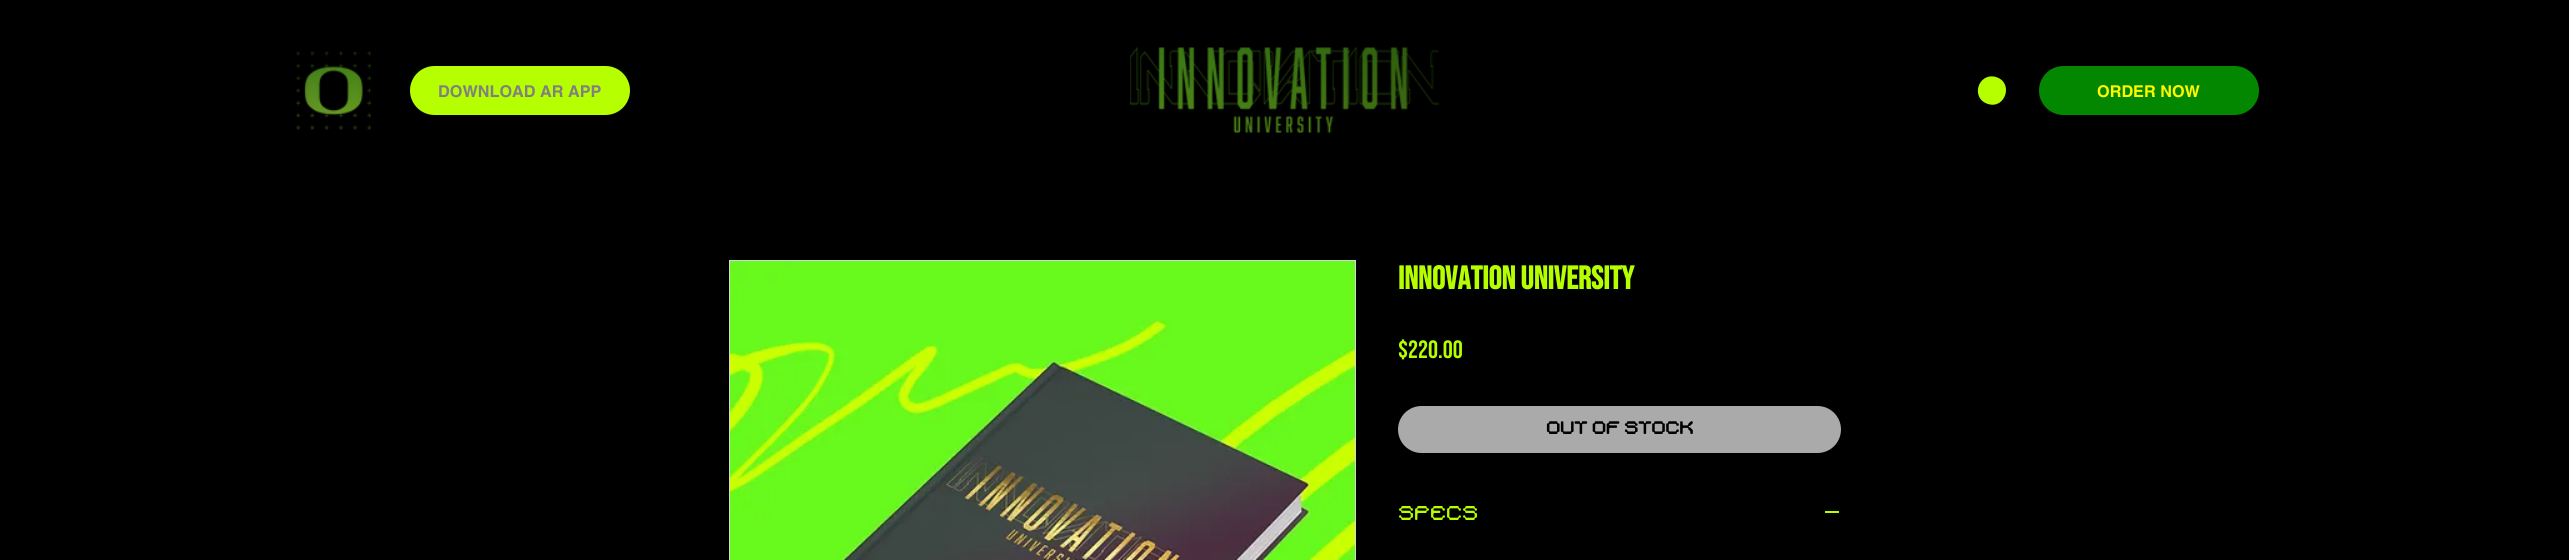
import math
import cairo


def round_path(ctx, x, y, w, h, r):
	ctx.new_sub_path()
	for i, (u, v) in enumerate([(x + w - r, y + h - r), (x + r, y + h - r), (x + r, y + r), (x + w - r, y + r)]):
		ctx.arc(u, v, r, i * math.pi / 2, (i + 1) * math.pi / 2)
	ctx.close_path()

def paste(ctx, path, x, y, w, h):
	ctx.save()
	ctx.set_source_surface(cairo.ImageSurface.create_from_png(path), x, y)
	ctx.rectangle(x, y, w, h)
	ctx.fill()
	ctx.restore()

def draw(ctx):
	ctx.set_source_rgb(0, 0, 0)
	ctx.paint()
	paste(ctx, 'media/1.png', 296, 51, 76, 79)
	ctx.set_source_rgb(0.714, 1, 0)
	round_path(ctx, 410, 66, 220, 49, 24.5)
	ctx.fill()
	ctx.select_font_face('helvetica', cairo.FONT_SLANT_NORMAL, cairo.FONT_WEIGHT_BOLD)
	ctx.set_font_size(16.25)
	ctx.set_source_rgb(0.502, 0.502, 0.502)
	ctx.move_to(438, 97)
	ctx.show_text('DOWNLOAD AR APP')
	paste(ctx, 'media/2.png', 1130, 47, 309, 86)
	ctx.set_source_rgb(0.714, 1, 0)
	ctx.new_path()
	ctx.move_to(1996, 77)
	ctx.curve_to(2014, 82.5, 2005.5, 109.5, 1988, 104)
	ctx.curve_to(1970, 98.5, 1978, 72, 1996, 77)
	ctx.close_path()
	ctx.fill()
	ctx.set_source_rgb(0.016, 0.529, 0)
	round_path(ctx, 2039, 66, 220, 49, 24.5)
	ctx.fill()
	ctx.set_source_rgb(1, 0.973, 0)
	ctx.move_to(2097, 97)
	ctx.show_text('ORDER NOW')
	ctx.rectangle(729.5, 260.5, 626, 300)
	ctx.set_source_rgb(0.835, 0.835, 0.835)
	ctx.set_line_width(1)
	ctx.stroke()
	paste(ctx, 'media/3.png', 730, 261, 625, 299)
	ctx.select_font_face('Bebas Neue', cairo.FONT_SLANT_NORMAL, cairo.FONT_WEIGHT_BOLD)
	ctx.set_font_size(32.5)
	ctx.set_source_rgb(0.714, 1, 0)
	ctx.move_to(1398, 289)
	ctx.show_text('Innovation University')
	ctx.select_font_face('Bebas Neue')
	ctx.set_font_size(25)
	ctx.move_to(1398, 358)
	ctx.show_text('$220.00')
	ctx.set_source_rgb(0.667, 0.667, 0.667)
	round_path(ctx, 1398, 406, 443, 47, 23.5)
	ctx.fill()
	ctx.select_font_face('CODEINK', cairo.FONT_SLANT_NORMAL, cairo.FONT_WEIGHT_BOLD)
	ctx.set_font_size(17.5)
	ctx.set_source_rgb(0, 0, 0)
	ctx.move_to(1546, 434)
	ctx.show_text('Out of Stock')
	ctx.select_font_face('CODEINK')
	ctx.set_font_size(20)
	ctx.set_source_rgb(0.714, 1, 0)
	ctx.move_to(1398, 520)
	ctx.show_text('Specs')
	ctx.rectangle(1825, 511, 14, 2)
	ctx.fill()


surface = cairo.ImageSurface(cairo.FORMAT_RGB24, 2569, 560)
ctx = cairo.Context(surface)
options = cairo.FontOptions()
options.set_hint_metrics(cairo.HINT_METRICS_OFF)
options.set_hint_style(cairo.HINT_STYLE_NONE)
ctx.set_font_options(options)
ctx.set_miter_limit(4)
draw(ctx)
surface.write_to_png('image.png')
